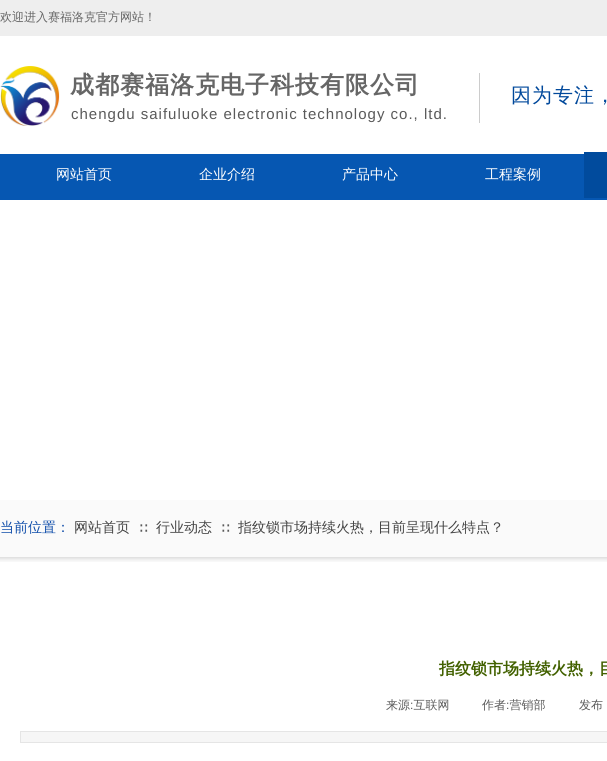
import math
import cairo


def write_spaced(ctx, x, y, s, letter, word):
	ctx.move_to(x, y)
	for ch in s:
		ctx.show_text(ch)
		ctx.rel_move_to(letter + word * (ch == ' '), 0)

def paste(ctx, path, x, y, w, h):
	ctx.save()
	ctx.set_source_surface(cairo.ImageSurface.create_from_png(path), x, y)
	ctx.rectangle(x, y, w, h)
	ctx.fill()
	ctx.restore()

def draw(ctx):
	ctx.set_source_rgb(1, 1, 1)
	ctx.paint()
	ctx.set_source_rgb(0.933, 0.933, 0.933)
	ctx.rectangle(0, 0, 607, 36)
	ctx.fill()
	ctx.select_font_face('WenQuanYi Zen Hei Medium')
	ctx.set_font_size(12)
	ctx.set_source_rgb(0.4, 0.4, 0.4)
	ctx.move_to(0, 21)
	ctx.show_text('欢迎进入赛福洛克官方网站！')
	paste(ctx, 'media/1.png', 0, 66, 60, 60)
	ctx.select_font_face('WenQuanYi Zen Hei', cairo.FONT_SLANT_NORMAL, cairo.FONT_WEIGHT_BOLD)
	ctx.set_font_size(24)
	write_spaced(ctx, 70, 93, '成都赛福洛克电子科技有限公司', 1, 0)
	ctx.set_source_rgb(0.8, 0.8, 0.8)
	ctx.rectangle(479, 73, 1, 50)
	ctx.fill()
	ctx.select_font_face('WenQuanYi Zen Hei Medium')
	ctx.set_font_size(20)
	ctx.set_source_rgb(0, 0.282, 0.608)
	write_spaced(ctx, 511, 102, '因为专注，', 1, 0)
	ctx.select_font_face('Liberation Sans')
	ctx.set_font_size(15)
	ctx.set_source_rgb(0.353, 0.353, 0.353)
	write_spaced(ctx, 71, 119, 'chengdu saifuluoke electronic technology co., ltd.', 1, 0)
	ctx.set_source_rgb(0.024, 0.341, 0.698)
	ctx.rectangle(0, 154, 607, 46)
	ctx.fill()
	ctx.select_font_face('WenQuanYi Zen Hei Medium')
	ctx.set_font_size(14)
	ctx.set_source_rgb(1, 1, 1)
	for x, y, s in [
		(56, 179, '网站首页'),
		(199, 179, '企业介绍'),
		(342, 179, '产品中心'),
		(485, 179, '工程案例'),
	]:
		ctx.move_to(x, y)
		ctx.show_text(s)
	ctx.set_source_rgb(0.004, 0.294, 0.616)
	ctx.rectangle(584, 152, 23, 46)
	ctx.fill()
	paste(ctx, 'media/2.png', 0, 500, 607, 62)
	ctx.set_source_rgb(0.063, 0.306, 0.667)
	ctx.move_to(0, 532)
	ctx.show_text('当前位置：')
	ctx.set_source_rgb(0.263, 0.263, 0.263)
	ctx.move_to(74, 532)
	ctx.show_text('网站首页')
	ctx.set_font_size(12)
	ctx.set_source_rgb(0.353, 0.353, 0.353)
	ctx.move_to(138, 532)
	ctx.show_text('∷')
	ctx.set_font_size(14)
	ctx.set_source_rgb(0.263, 0.263, 0.263)
	ctx.move_to(156, 532)
	ctx.show_text('行业动态')
	ctx.set_font_size(12)
	ctx.set_source_rgb(0.353, 0.353, 0.353)
	ctx.move_to(220, 532)
	ctx.show_text('∷')
	ctx.set_font_size(14)
	ctx.set_source_rgb(0.263, 0.263, 0.263)
	ctx.move_to(238, 532)
	ctx.show_text('指纹锁市场持续火热，目前呈现什么特点？')
	ctx.select_font_face('WenQuanYi Zen Hei', cairo.FONT_SLANT_NORMAL, cairo.FONT_WEIGHT_BOLD)
	ctx.set_font_size(16)
	ctx.set_source_rgb(0.259, 0.38, 0)
	ctx.move_to(439, 674)
	ctx.show_text('指纹锁市场持续火热，目')
	ctx.select_font_face('WenQuanYi Zen Hei Medium')
	ctx.set_font_size(12)
	ctx.set_source_rgb(0.353, 0.353, 0.353)
	ctx.move_to(386, 709)
	ctx.show_text('来源 互联网')
	ctx.select_font_face('Liberation Sans')
	ctx.move_to(410, 709)
	ctx.show_text(':')
	ctx.select_font_face('WenQuanYi Zen Hei Medium')
	ctx.move_to(482, 709)
	ctx.show_text('作者 营销部')
	ctx.select_font_face('Liberation Sans')
	ctx.move_to(506, 709)
	ctx.show_text(':')
	ctx.select_font_face('WenQuanYi Zen Hei Medium')
	ctx.move_to(579, 709)
	ctx.show_text('发布')
	ctx.set_source_rgb(0.961, 0.961, 0.961)
	ctx.rectangle(20.5, 731.5, 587, 11)
	ctx.fill_preserve()
	ctx.set_source_rgb(0.898, 0.898, 0.898)
	ctx.set_line_width(1)
	ctx.stroke()


surface = cairo.ImageSurface(cairo.FORMAT_RGB24, 607, 761)
ctx = cairo.Context(surface)
options = cairo.FontOptions()
options.set_hint_metrics(cairo.HINT_METRICS_OFF)
options.set_hint_style(cairo.HINT_STYLE_NONE)
ctx.set_font_options(options)
ctx.set_miter_limit(4)
draw(ctx)
surface.write_to_png('image.png')
